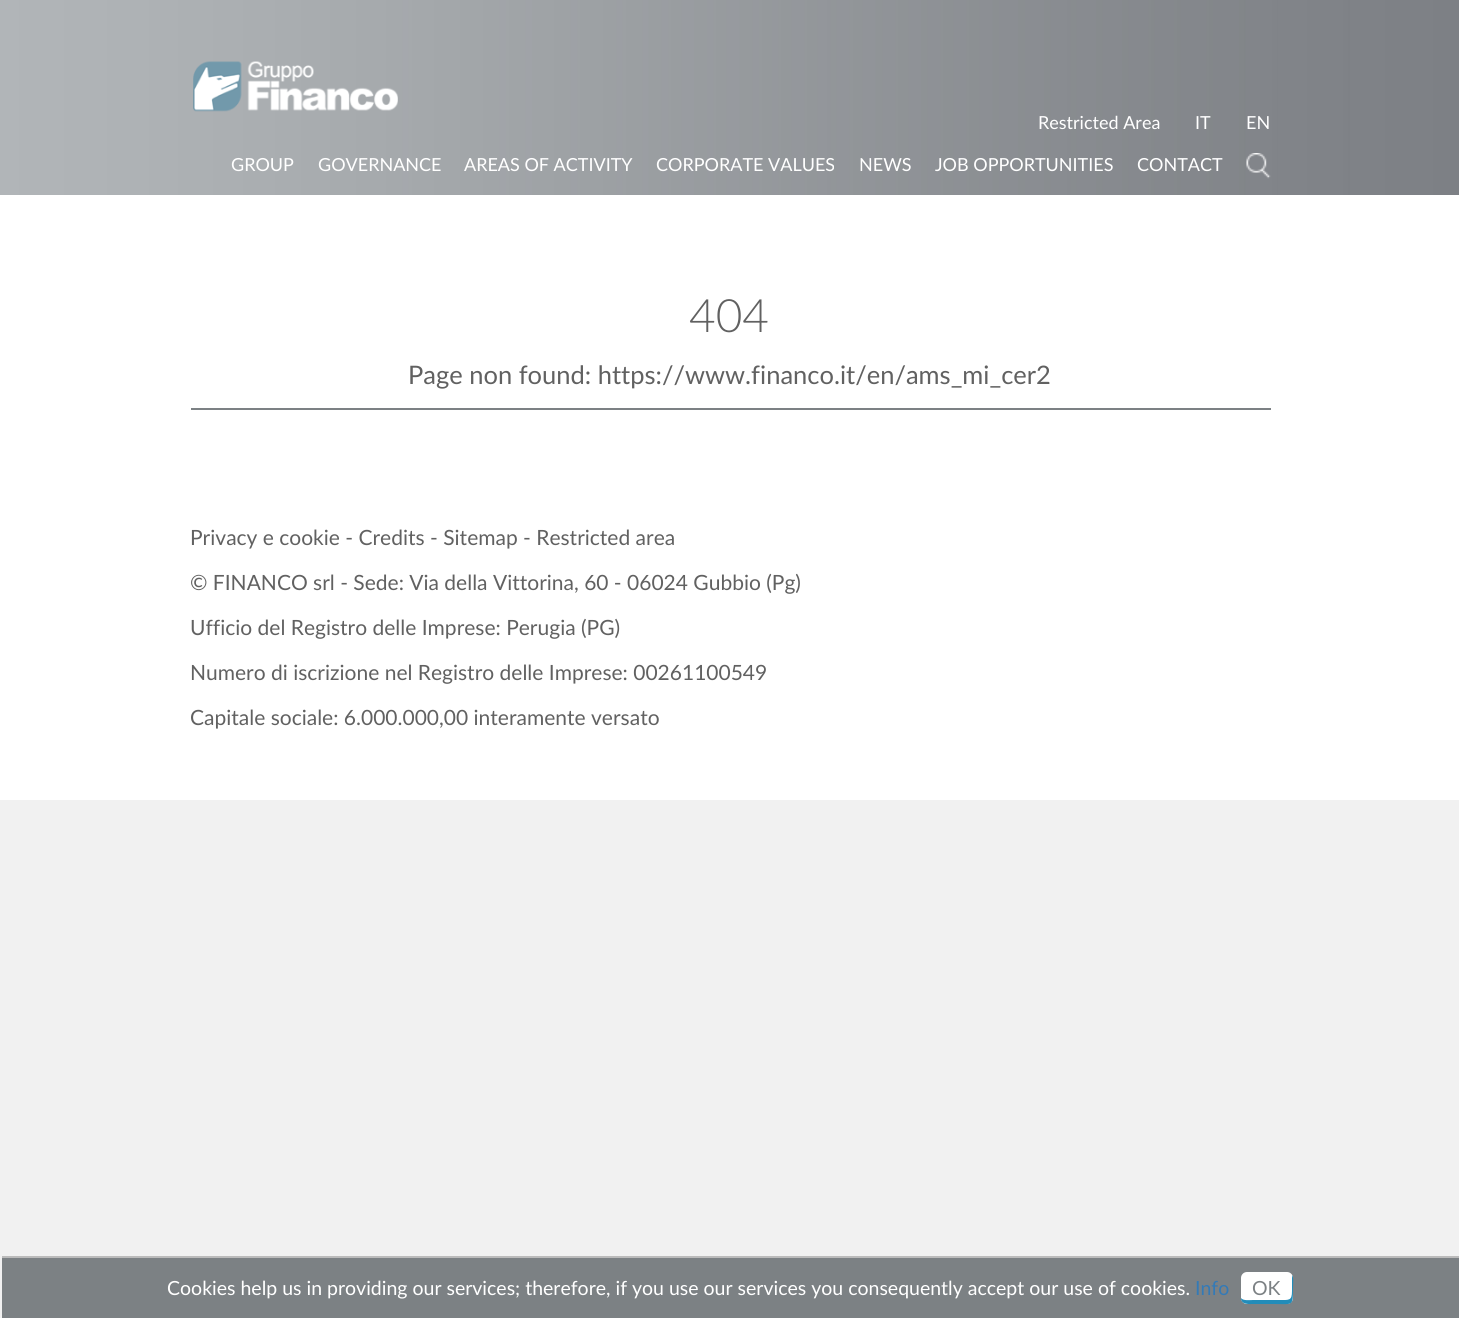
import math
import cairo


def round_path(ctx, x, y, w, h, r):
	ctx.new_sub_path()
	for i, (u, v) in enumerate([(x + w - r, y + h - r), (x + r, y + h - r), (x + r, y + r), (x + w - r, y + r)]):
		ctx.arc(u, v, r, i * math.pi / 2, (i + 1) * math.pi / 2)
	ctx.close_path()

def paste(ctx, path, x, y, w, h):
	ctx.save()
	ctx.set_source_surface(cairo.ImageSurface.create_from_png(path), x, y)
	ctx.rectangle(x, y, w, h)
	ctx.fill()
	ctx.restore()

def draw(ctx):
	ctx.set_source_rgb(0.945, 0.945, 0.945)
	ctx.paint()
	ctx.set_source_rgb(1, 1, 1)
	ctx.rectangle(0, 195, 1459, 605)
	ctx.fill()
	paste(ctx, 'media/1.png', 0, 0, 1459, 195)
	paste(ctx, 'media/2.png', 193, 61, 205, 51)
	ctx.select_font_face('Lato')
	ctx.set_font_size(18)
	for x, y, s in [
		(1038, 129, 'Restricted Area'),
		(1195, 129, 'IT'),
		(1246, 129, 'EN'),
		(231, 171, 'GROUP'),
		(318, 171, 'GOVERNANCE'),
		(464, 171, 'AREAS OF ACTIVITY'),
		(656, 171, 'CORPORATE VALUES'),
		(859, 171, 'NEWS'),
		(935, 171, 'JOB OPPORTUNITIES'),
		(1137, 171, 'CONTACT'),
	]:
		ctx.move_to(x, y)
		ctx.show_text(s)
	paste(ctx, 'media/3.png', 1246, 153, 25, 26)
	ctx.select_font_face('Lato Light')
	ctx.set_font_size(46)
	ctx.set_source_rgb(0.38, 0.38, 0.38)
	ctx.move_to(689, 332)
	ctx.show_text('404')
	ctx.select_font_face('Lato')
	ctx.set_font_size(25.5)
	ctx.move_to(408, 384)
	ctx.show_text('Page non found: https://www.financo.it/en/ams_mi_cer2')
	ctx.set_source_rgb(0.486, 0.506, 0.518)
	ctx.rectangle(191, 408, 1080, 2)
	ctx.fill()
	ctx.set_font_size(21)
	ctx.set_source_rgb(0.38, 0.38, 0.38)
	for x, y, s in [
		(190, 545, 'Privacy e cookie - Credits - Sitemap - Restricted area'),
		(190, 590, '© FINANCO srl - Sede: Via della Vittorina, 60 - 06024 Gubbio (Pg)'),
		(190, 635, 'Ufficio del Registro delle Imprese: Perugia (PG)'),
		(190, 680, 'Numero di iscrizione nel Registro delle Imprese: 00261100549'),
		(190, 725, 'Capitale sociale: 6.000.000,00 interamente versato'),
	]:
		ctx.move_to(x, y)
		ctx.show_text(s)
	ctx.set_source_rgb(0.486, 0.506, 0.518)
	ctx.rectangle(2, 1258, 1457, 60)
	ctx.fill()
	ctx.set_source_rgb(0.733, 0.733, 0.733)
	ctx.rectangle(2, 1256, 1457, 2)
	ctx.fill()
	ctx.set_font_size(19.5)
	ctx.set_source_rgb(1, 1, 1)
	ctx.move_to(167, 1295)
	ctx.show_text('Cookies help us in providing our services; therefore, if you use our services you consequently accept our use of cookies.')
	ctx.set_source_rgb(0.2, 0.478, 0.718)
	ctx.move_to(1195, 1295)
	ctx.show_text('Info')
	ctx.set_source_rgb(1, 1, 1)
	round_path(ctx, 1241, 1272, 52, 32, 6)
	ctx.fill()
	ctx.set_source_rgb(0.133, 0.549, 0.725)
	ctx.new_path()
	ctx.move_to(1241, 1298)
	ctx.curve_to(1241, 1305, 1249, 1304, 1254, 1304)
	ctx.line_to(1274, 1304)
	ctx.curve_to(1293, 1304, 1293, 1307, 1293, 1288)
	ctx.curve_to(1293, 1284, 1294, 1278, 1292, 1275)
	ctx.line_to(1292, 1291)
	ctx.curve_to(1292, 1301, 1289, 1300, 1279, 1300)
	ctx.line_to(1253, 1300)
	ctx.curve_to(1250, 1300, 1243, 1301, 1241, 1298)
	ctx.close_path()
	ctx.fill()
	ctx.set_source_rgb(0.486, 0.506, 0.518)
	ctx.move_to(1252, 1295)
	ctx.show_text('OK')


surface = cairo.ImageSurface(cairo.FORMAT_RGB24, 1459, 1318)
ctx = cairo.Context(surface)
options = cairo.FontOptions()
options.set_hint_metrics(cairo.HINT_METRICS_OFF)
options.set_hint_style(cairo.HINT_STYLE_NONE)
ctx.set_font_options(options)
ctx.set_miter_limit(4)
draw(ctx)
surface.write_to_png('image.png')
